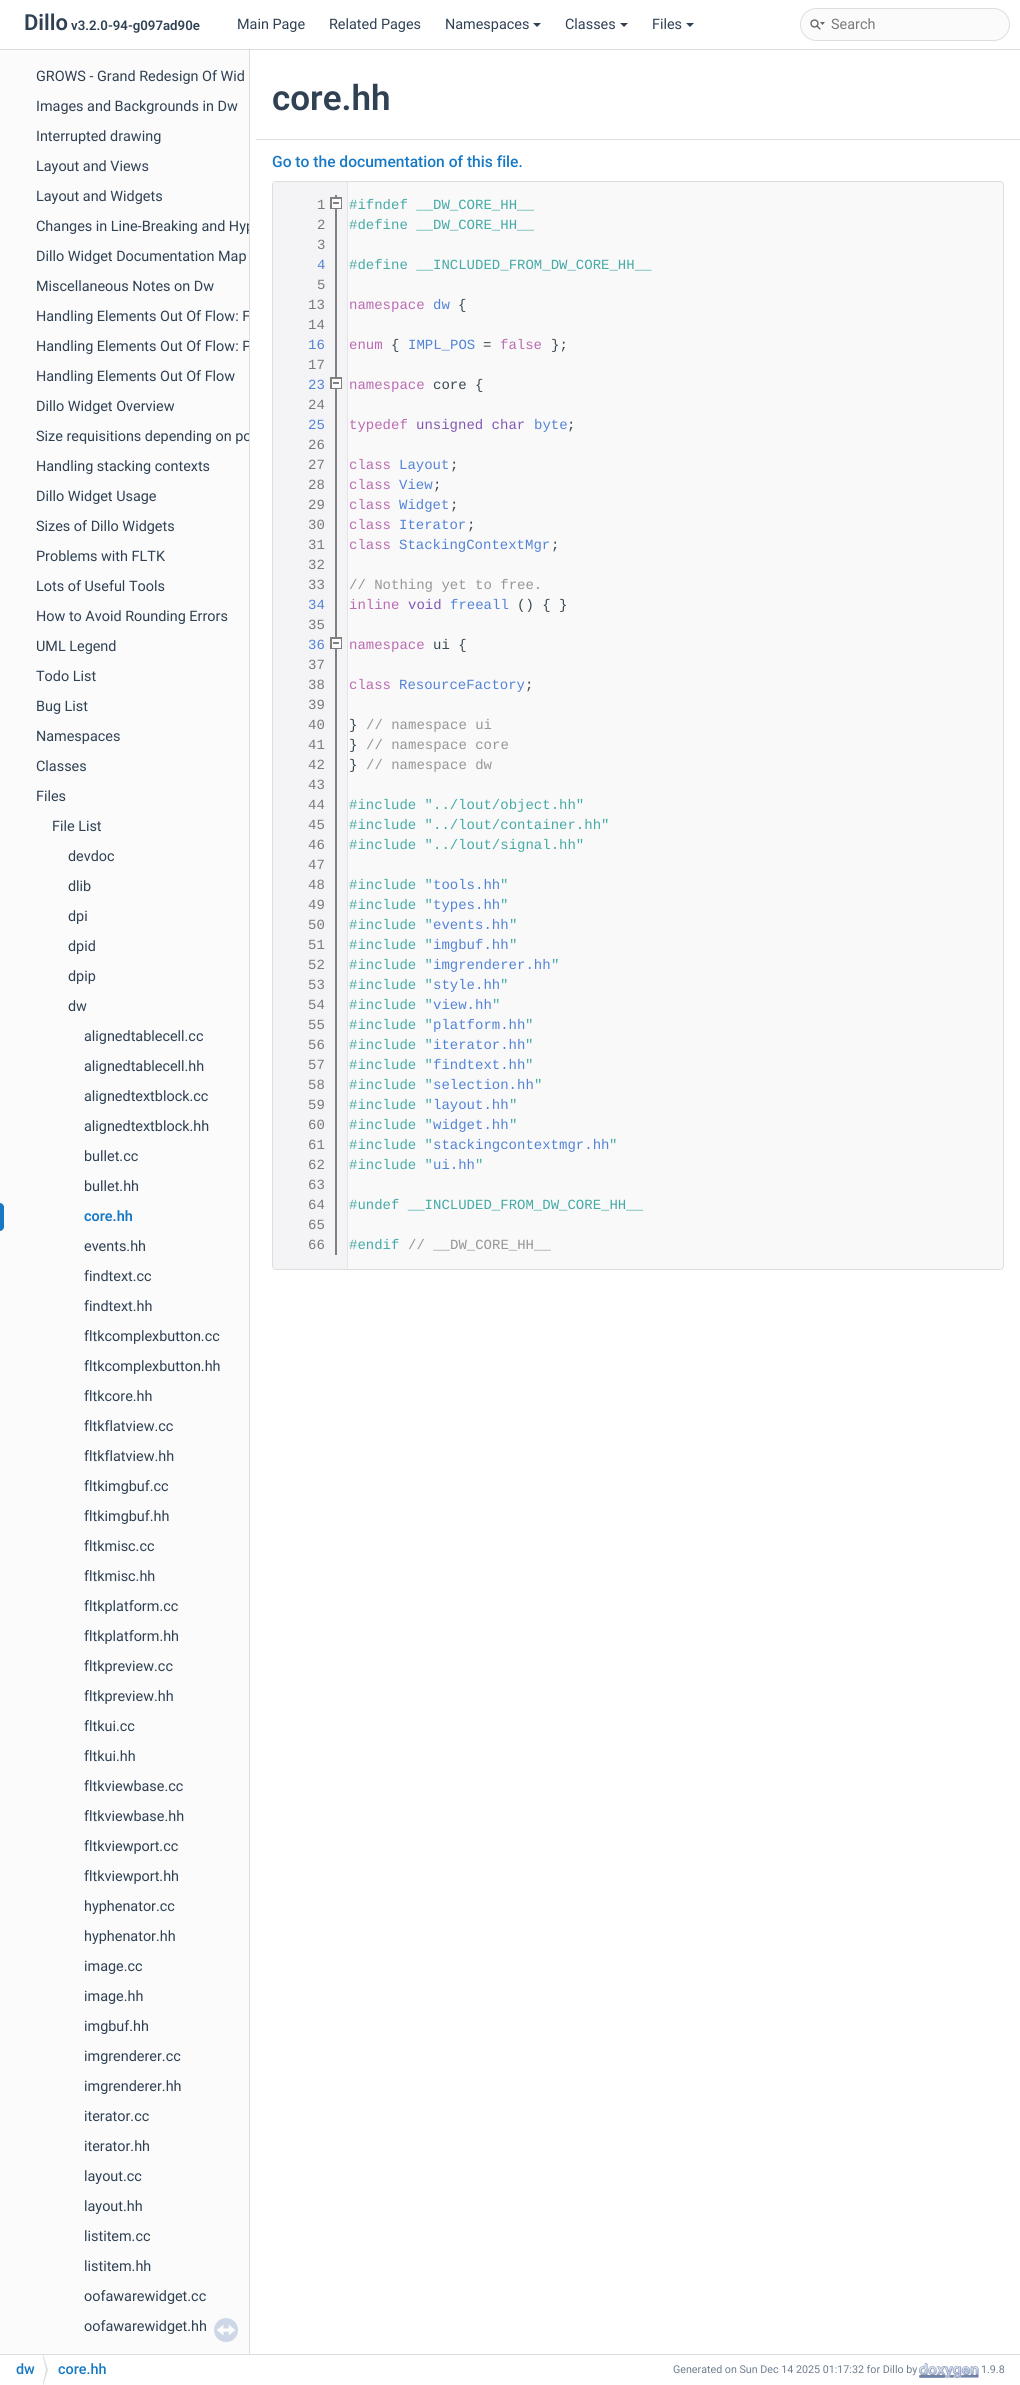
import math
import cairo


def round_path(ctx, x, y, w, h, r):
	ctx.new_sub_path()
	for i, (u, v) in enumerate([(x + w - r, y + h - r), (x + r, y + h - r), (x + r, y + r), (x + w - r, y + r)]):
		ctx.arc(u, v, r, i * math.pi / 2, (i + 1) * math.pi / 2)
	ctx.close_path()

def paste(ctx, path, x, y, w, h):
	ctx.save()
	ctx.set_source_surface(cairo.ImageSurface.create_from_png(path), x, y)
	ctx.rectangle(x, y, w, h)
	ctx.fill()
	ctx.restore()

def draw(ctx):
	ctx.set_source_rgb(1, 1, 1)
	ctx.paint()
	ctx.set_source_rgb(0.871, 0.871, 0.871)
	ctx.rectangle(0, 49, 1020, 1)
	ctx.fill()
	ctx.select_font_face('Roboto SemiBold')
	ctx.set_font_size(22)
	ctx.set_source_rgb(0.184, 0.255, 0.325)
	ctx.move_to(24, 30)
	ctx.show_text('Dillo')
	ctx.set_font_size(13.25)
	ctx.move_to(71, 30)
	ctx.show_text('v3.2.0-94-g097ad90e')
	ctx.select_font_face('Roboto')
	ctx.set_font_size(14.4)
	for x, y, s in [
		(237, 29, 'Main Page'),
		(329, 29, 'Related Pages'),
		(445, 29, 'Namespaces'),
	]:
		ctx.move_to(x, y)
		ctx.show_text(s)
	ctx.new_path()
	ctx.move_to(533, 23)
	ctx.line_to(541, 23)
	ctx.line_to(537, 27)
	ctx.close_path()
	ctx.fill()
	ctx.move_to(565, 29)
	ctx.show_text('Classes')
	ctx.new_path()
	ctx.move_to(620, 23)
	ctx.line_to(628, 23)
	ctx.line_to(624, 27)
	ctx.close_path()
	ctx.fill()
	ctx.move_to(652, 29)
	ctx.show_text('Files')
	ctx.new_path()
	ctx.move_to(686, 23)
	ctx.line_to(694, 23)
	ctx.line_to(690, 27)
	ctx.close_path()
	ctx.fill()
	ctx.set_source_rgb(0.984, 0.984, 0.984)
	round_path(ctx, 800.5, 8.5, 209, 32, 16)
	ctx.fill_preserve()
	ctx.set_source_rgb(0.871, 0.871, 0.871)
	ctx.set_line_width(1)
	ctx.stroke()
	paste(ctx, 'media/1.png', 810, 19, 15, 11)
	ctx.set_source_rgb(0.475, 0.475, 0.475)
	ctx.move_to(831, 29)
	ctx.show_text('Search')
	ctx.set_source_rgb(0.984, 0.984, 0.984)
	ctx.rectangle(0, 50, 249, 2304)
	ctx.fill()
	ctx.set_source_rgb(0.184, 0.255, 0.325)
	for x, y, s in [
		(36, 81, 'GROWS - Grand Redesign Of Wid'),
		(36, 111, 'Images and Backgrounds in Dw'),
		(36, 141, 'Interrupted drawing'),
		(36, 171, 'Layout and Views'),
		(36, 201, 'Layout and Widgets'),
	]:
		ctx.move_to(x, y)
		ctx.show_text(s)
	ctx.save()
	ctx.rectangle(0, 50, 249, 2304)
	ctx.clip()
	ctx.move_to(36, 231)
	ctx.show_text('Changes in Line-Breaking and Hyp')
	ctx.restore()
	for x, y, s in [
		(36, 261, 'Dillo Widget Documentation Map'),
		(36, 291, 'Miscellaneous Notes on Dw'),
		(36, 321, 'Handling Elements Out Of Flow: F'),
	]:
		ctx.move_to(x, y)
		ctx.show_text(s)
	ctx.save()
	ctx.rectangle(0, 50, 249, 2304)
	ctx.clip()
	ctx.move_to(36, 351)
	ctx.show_text('Handling Elements Out Of Flow: P')
	ctx.restore()
	ctx.move_to(36, 381)
	ctx.show_text('Handling Elements Out Of Flow')
	ctx.move_to(36, 411)
	ctx.show_text('Dillo Widget Overview')
	ctx.save()
	ctx.rectangle(0, 50, 249, 2304)
	ctx.clip()
	ctx.move_to(36, 441)
	ctx.show_text('Size requisitions depending on po')
	ctx.restore()
	for x, y, s in [
		(36, 471, 'Handling stacking contexts'),
		(36, 501, 'Dillo Widget Usage'),
		(36, 531, 'Sizes of Dillo Widgets'),
		(36, 561, 'Problems with FLTK'),
		(36, 591, 'Lots of Useful Tools'),
		(36, 621, 'How to Avoid Rounding Errors'),
		(36, 651, 'UML Legend'),
		(36, 681, 'Todo List'),
		(36, 711, 'Bug List'),
		(36, 741, 'Namespaces'),
		(36, 771, 'Classes'),
		(36, 801, 'Files'),
		(52, 831, 'File List'),
		(68, 861, 'devdoc'),
		(68, 891, 'dlib'),
		(68, 921, 'dpi'),
		(68, 951, 'dpid'),
		(68, 981, 'dpip'),
		(68, 1011, 'dw'),
		(84, 1041, 'alignedtablecell.cc'),
		(84, 1071, 'alignedtablecell.hh'),
		(84, 1101, 'alignedtextblock.cc'),
		(84, 1131, 'alignedtextblock.hh'),
		(84, 1161, 'bullet.cc'),
		(84, 1191, 'bullet.hh'),
	]:
		ctx.move_to(x, y)
		ctx.show_text(s)
	ctx.set_source_rgb(0.09, 0.475, 0.769)
	ctx.new_path()
	ctx.move_to(0, 1203)
	ctx.curve_to(2, 1203, 4, 1205, 4, 1207)
	ctx.line_to(4, 1227)
	ctx.curve_to(4, 1229, 2, 1231, 0, 1231)
	ctx.close_path()
	ctx.fill()
	ctx.select_font_face('Roboto SemiBold')
	ctx.move_to(84, 1221)
	ctx.show_text('core.hh')
	ctx.select_font_face('Roboto')
	ctx.set_source_rgb(0.184, 0.255, 0.325)
	for x, y, s in [
		(84, 1251, 'events.hh'),
		(84, 1281, 'findtext.cc'),
		(84, 1311, 'findtext.hh'),
		(84, 1341, 'fltkcomplexbutton.cc'),
		(84, 1371, 'fltkcomplexbutton.hh'),
		(84, 1401, 'fltkcore.hh'),
		(84, 1431, 'fltkflatview.cc'),
		(84, 1461, 'fltkflatview.hh'),
		(84, 1491, 'fltkimgbuf.cc'),
		(84, 1521, 'fltkimgbuf.hh'),
		(84, 1551, 'fltkmisc.cc'),
		(84, 1581, 'fltkmisc.hh'),
		(84, 1611, 'fltkplatform.cc'),
		(84, 1641, 'fltkplatform.hh'),
		(84, 1671, 'fltkpreview.cc'),
		(84, 1701, 'fltkpreview.hh'),
		(84, 1731, 'fltkui.cc'),
		(84, 1761, 'fltkui.hh'),
		(84, 1791, 'fltkviewbase.cc'),
		(84, 1821, 'fltkviewbase.hh'),
		(84, 1851, 'fltkviewport.cc'),
		(84, 1881, 'fltkviewport.hh'),
		(84, 1911, 'hyphenator.cc'),
		(84, 1941, 'hyphenator.hh'),
		(84, 1971, 'image.cc'),
		(84, 2001, 'image.hh'),
		(84, 2031, 'imgbuf.hh'),
		(84, 2061, 'imgrenderer.cc'),
		(84, 2091, 'imgrenderer.hh'),
		(84, 2121, 'iterator.cc'),
		(84, 2151, 'iterator.hh'),
		(84, 2181, 'layout.cc'),
		(84, 2211, 'layout.hh'),
		(84, 2241, 'listitem.cc'),
		(84, 2271, 'listitem.hh'),
		(84, 2301, 'oofawarewidget.cc'),
		(84, 2331, 'oofawarewidget.hh'),
	]:
		ctx.move_to(x, y)
		ctx.show_text(s)
	paste(ctx, 'media/2.png', 214, 2318, 24, 24)
	ctx.set_source_rgb(0.871, 0.871, 0.871)
	ctx.rectangle(249, 50, 1, 2304)
	ctx.fill()
	ctx.rectangle(256, 139, 764, 1)
	ctx.fill()
	ctx.select_font_face('Roboto SemiBold')
	ctx.set_font_size(35)
	ctx.set_source_rgb(0.184, 0.255, 0.325)
	ctx.move_to(272, 110)
	ctx.show_text('core.hh')
	ctx.select_font_face('Roboto Medium')
	ctx.set_font_size(15.6)
	ctx.set_source_rgb(0.09, 0.475, 0.769)
	ctx.move_to(272, 167)
	ctx.show_text('Go to the documentation of this file.')
	ctx.set_source_rgb(0.973, 0.976, 0.98)
	round_path(ctx, 272.5, 181.5, 731, 1088, 3.5)
	ctx.fill_preserve()
	ctx.set_source_rgb(0.871, 0.871, 0.871)
	ctx.stroke()
	ctx.set_source_rgb(0.89, 0.898, 0.906)
	ctx.set_fill_rule(cairo.FILL_RULE_EVEN_ODD)
	ctx.new_path()
	ctx.move_to(276, 182)
	ctx.curve_to(274, 182, 273, 183, 273, 185)
	ctx.line_to(273, 1266)
	ctx.curve_to(273, 1268, 274, 1269, 276, 1269)
	ctx.line_to(348, 1269)
	ctx.line_to(348, 182)
	ctx.close_path()
	ctx.move_to(289, 195)
	ctx.line_to(289, 215)
	ctx.line_to(347, 215)
	ctx.line_to(347, 195)
	ctx.close_path()
	ctx.fill()
	ctx.set_source_rgb(0.957, 0.957, 0.961)
	ctx.set_fill_rule(cairo.FILL_RULE_WINDING)
	ctx.new_path()
	ctx.move_to(276, 182)
	ctx.curve_to(274, 182, 273, 183, 273, 185)
	ctx.line_to(273, 1266)
	ctx.curve_to(273, 1268, 274, 1269, 276, 1269)
	ctx.line_to(347, 1269)
	ctx.line_to(347, 215)
	ctx.line_to(289, 215)
	ctx.line_to(289, 195)
	ctx.line_to(347, 195)
	ctx.line_to(347, 182)
	ctx.close_path()
	ctx.fill()
	ctx.rectangle(289, 195, 58, 20)
	ctx.fill()
	ctx.set_source_rgb(0.502, 0.502, 0.502)
	ctx.rectangle(335, 195, 2, 1060)
	ctx.fill()
	ctx.select_font_face('Liberation Mono')
	ctx.set_font_size(14)
	ctx.set_source_rgb(0.475, 0.475, 0.475)
	ctx.move_to(317, 209)
	ctx.show_text('1')
	ctx.set_source_rgb(0.502, 0.502, 0.502)
	ctx.rectangle(330, 197, 12, 12)
	ctx.fill()
	ctx.set_source_rgb(0.988, 0.988, 0.988)
	ctx.rectangle(332, 199, 9, 9)
	ctx.fill()
	ctx.set_source_rgb(0.502, 0.502, 0.502)
	ctx.rectangle(333, 202, 6, 2)
	ctx.fill()
	ctx.set_source_rgb(0.275, 0.667, 0.647)
	ctx.move_to(349, 209)
	ctx.show_text('#ifndef __DW_CORE_HH__')
	ctx.set_source_rgb(0.475, 0.475, 0.475)
	ctx.move_to(317, 229)
	ctx.show_text('2')
	ctx.set_source_rgb(0.275, 0.667, 0.647)
	ctx.move_to(349, 229)
	ctx.show_text('#define __DW_CORE_HH__')
	ctx.set_source_rgb(0.475, 0.475, 0.475)
	ctx.move_to(317, 249)
	ctx.show_text('3')
	ctx.set_source_rgb(0.325, 0.514, 0.839)
	ctx.move_to(317, 269)
	ctx.show_text('4')
	ctx.set_source_rgb(0.275, 0.667, 0.647)
	ctx.move_to(349, 269)
	ctx.show_text('#define __INCLUDED_FROM_DW_CORE_HH__')
	ctx.set_source_rgb(0.475, 0.475, 0.475)
	ctx.move_to(317, 289)
	ctx.show_text('5')
	ctx.move_to(308, 309)
	ctx.show_text('13')
	ctx.set_source_rgb(0.733, 0.42, 0.698)
	ctx.move_to(349, 309)
	ctx.show_text('namespace')
	ctx.set_source_rgb(0.325, 0.514, 0.839)
	ctx.move_to(433, 309)
	ctx.show_text('dw')
	ctx.set_source_rgb(0.216, 0.278, 0.31)
	ctx.move_to(458, 309)
	ctx.show_text('{')
	ctx.set_source_rgb(0.475, 0.475, 0.475)
	ctx.move_to(308, 329)
	ctx.show_text('14')
	ctx.set_source_rgb(0.325, 0.514, 0.839)
	ctx.move_to(308, 349)
	ctx.show_text('16')
	ctx.set_source_rgb(0.733, 0.42, 0.698)
	ctx.move_to(349, 349)
	ctx.show_text('enum')
	ctx.set_source_rgb(0.216, 0.278, 0.31)
	ctx.move_to(391, 349)
	ctx.show_text('{')
	ctx.set_source_rgb(0.325, 0.514, 0.839)
	ctx.move_to(408, 349)
	ctx.show_text('IMPL_POS')
	ctx.set_source_rgb(0.216, 0.278, 0.31)
	ctx.move_to(483, 349)
	ctx.show_text('=')
	ctx.set_source_rgb(0.733, 0.42, 0.698)
	ctx.move_to(500, 349)
	ctx.show_text('false')
	ctx.set_source_rgb(0.216, 0.278, 0.31)
	ctx.move_to(551, 349)
	ctx.show_text('};')
	ctx.set_source_rgb(0.475, 0.475, 0.475)
	ctx.move_to(308, 369)
	ctx.show_text('17')
	ctx.set_source_rgb(0.325, 0.514, 0.839)
	ctx.move_to(308, 389)
	ctx.show_text('23')
	ctx.set_source_rgb(0.502, 0.502, 0.502)
	ctx.rectangle(330, 377, 12, 12)
	ctx.fill()
	ctx.set_source_rgb(0.988, 0.988, 0.988)
	ctx.rectangle(332, 379, 9, 9)
	ctx.fill()
	ctx.set_source_rgb(0.502, 0.502, 0.502)
	ctx.rectangle(333, 382, 6, 2)
	ctx.fill()
	ctx.set_source_rgb(0.733, 0.42, 0.698)
	ctx.move_to(349, 389)
	ctx.show_text('namespace')
	ctx.set_source_rgb(0.216, 0.278, 0.31)
	ctx.move_to(433, 389)
	ctx.show_text('core {')
	ctx.set_source_rgb(0.475, 0.475, 0.475)
	ctx.move_to(308, 409)
	ctx.show_text('24')
	ctx.set_source_rgb(0.325, 0.514, 0.839)
	ctx.move_to(308, 429)
	ctx.show_text('25')
	ctx.set_source_rgb(0.733, 0.42, 0.698)
	ctx.move_to(349, 429)
	ctx.show_text('typedef')
	ctx.set_source_rgb(0.51, 0.345, 0.702)
	ctx.move_to(416, 429)
	ctx.show_text('unsigned char')
	ctx.set_source_rgb(0.325, 0.514, 0.839)
	ctx.move_to(534, 429)
	ctx.show_text('byte')
	ctx.set_source_rgb(0.216, 0.278, 0.31)
	ctx.move_to(567, 429)
	ctx.show_text(';')
	ctx.set_source_rgb(0.475, 0.475, 0.475)
	ctx.move_to(308, 449)
	ctx.show_text('26')
	ctx.move_to(308, 469)
	ctx.show_text('27')
	ctx.set_source_rgb(0.733, 0.42, 0.698)
	ctx.move_to(349, 469)
	ctx.show_text('class')
	ctx.set_source_rgb(0.325, 0.514, 0.839)
	ctx.move_to(399, 469)
	ctx.show_text('Layout')
	ctx.set_source_rgb(0.216, 0.278, 0.31)
	ctx.move_to(450, 469)
	ctx.show_text(';')
	ctx.set_source_rgb(0.475, 0.475, 0.475)
	ctx.move_to(308, 489)
	ctx.show_text('28')
	ctx.set_source_rgb(0.733, 0.42, 0.698)
	ctx.move_to(349, 489)
	ctx.show_text('class')
	ctx.set_source_rgb(0.325, 0.514, 0.839)
	ctx.move_to(399, 489)
	ctx.show_text('View')
	ctx.set_source_rgb(0.216, 0.278, 0.31)
	ctx.move_to(433, 489)
	ctx.show_text(';')
	ctx.set_source_rgb(0.475, 0.475, 0.475)
	ctx.move_to(308, 509)
	ctx.show_text('29')
	ctx.set_source_rgb(0.733, 0.42, 0.698)
	ctx.move_to(349, 509)
	ctx.show_text('class')
	ctx.set_source_rgb(0.325, 0.514, 0.839)
	ctx.move_to(399, 509)
	ctx.show_text('Widget')
	ctx.set_source_rgb(0.216, 0.278, 0.31)
	ctx.move_to(450, 509)
	ctx.show_text(';')
	ctx.set_source_rgb(0.475, 0.475, 0.475)
	ctx.move_to(308, 529)
	ctx.show_text('30')
	ctx.set_source_rgb(0.733, 0.42, 0.698)
	ctx.move_to(349, 529)
	ctx.show_text('class')
	ctx.set_source_rgb(0.325, 0.514, 0.839)
	ctx.move_to(399, 529)
	ctx.show_text('Iterator')
	ctx.set_source_rgb(0.216, 0.278, 0.31)
	ctx.move_to(467, 529)
	ctx.show_text(';')
	ctx.set_source_rgb(0.475, 0.475, 0.475)
	ctx.move_to(308, 549)
	ctx.show_text('31')
	ctx.set_source_rgb(0.733, 0.42, 0.698)
	ctx.move_to(349, 549)
	ctx.show_text('class')
	ctx.set_source_rgb(0.325, 0.514, 0.839)
	ctx.move_to(399, 549)
	ctx.show_text('StackingContextMgr')
	ctx.set_source_rgb(0.216, 0.278, 0.31)
	ctx.move_to(551, 549)
	ctx.show_text(';')
	ctx.set_source_rgb(0.475, 0.475, 0.475)
	ctx.move_to(308, 569)
	ctx.show_text('32')
	ctx.move_to(308, 589)
	ctx.show_text('33')
	ctx.set_source_rgb(0.588, 0.588, 0.588)
	ctx.move_to(349, 589)
	ctx.show_text('// Nothing yet to free.')
	ctx.set_source_rgb(0.325, 0.514, 0.839)
	ctx.move_to(308, 609)
	ctx.show_text('34')
	ctx.set_source_rgb(0.733, 0.42, 0.698)
	ctx.move_to(349, 609)
	ctx.show_text('inline')
	ctx.set_source_rgb(0.51, 0.345, 0.702)
	ctx.move_to(408, 609)
	ctx.show_text('void')
	ctx.set_source_rgb(0.325, 0.514, 0.839)
	ctx.move_to(450, 609)
	ctx.show_text('freeall')
	ctx.set_source_rgb(0.216, 0.278, 0.31)
	ctx.move_to(517, 609)
	ctx.show_text('() { }')
	ctx.set_source_rgb(0.475, 0.475, 0.475)
	ctx.move_to(308, 629)
	ctx.show_text('35')
	ctx.set_source_rgb(0.325, 0.514, 0.839)
	ctx.move_to(308, 649)
	ctx.show_text('36')
	ctx.set_source_rgb(0.502, 0.502, 0.502)
	ctx.rectangle(330, 637, 12, 12)
	ctx.fill()
	ctx.set_source_rgb(0.988, 0.988, 0.988)
	ctx.rectangle(332, 639, 9, 9)
	ctx.fill()
	ctx.set_source_rgb(0.502, 0.502, 0.502)
	ctx.rectangle(333, 642, 6, 2)
	ctx.fill()
	ctx.set_source_rgb(0.733, 0.42, 0.698)
	ctx.move_to(349, 649)
	ctx.show_text('namespace')
	ctx.set_source_rgb(0.216, 0.278, 0.31)
	ctx.move_to(433, 649)
	ctx.show_text('ui {')
	ctx.set_source_rgb(0.475, 0.475, 0.475)
	ctx.move_to(308, 669)
	ctx.show_text('37')
	ctx.move_to(308, 689)
	ctx.show_text('38')
	ctx.set_source_rgb(0.733, 0.42, 0.698)
	ctx.move_to(349, 689)
	ctx.show_text('class')
	ctx.set_source_rgb(0.325, 0.514, 0.839)
	ctx.move_to(399, 689)
	ctx.show_text('ResourceFactory')
	ctx.set_source_rgb(0.216, 0.278, 0.31)
	ctx.move_to(525, 689)
	ctx.show_text(';')
	ctx.set_source_rgb(0.475, 0.475, 0.475)
	ctx.move_to(308, 709)
	ctx.show_text('39')
	ctx.move_to(308, 729)
	ctx.show_text('40')
	ctx.set_source_rgb(0.216, 0.278, 0.31)
	ctx.move_to(349, 729)
	ctx.show_text('}')
	ctx.set_source_rgb(0.588, 0.588, 0.588)
	ctx.move_to(366, 729)
	ctx.show_text('// namespace ui')
	ctx.set_source_rgb(0.475, 0.475, 0.475)
	ctx.move_to(308, 749)
	ctx.show_text('41')
	ctx.set_source_rgb(0.216, 0.278, 0.31)
	ctx.move_to(349, 749)
	ctx.show_text('}')
	ctx.set_source_rgb(0.588, 0.588, 0.588)
	ctx.move_to(366, 749)
	ctx.show_text('// namespace core')
	ctx.set_source_rgb(0.475, 0.475, 0.475)
	ctx.move_to(308, 769)
	ctx.show_text('42')
	ctx.set_source_rgb(0.216, 0.278, 0.31)
	ctx.move_to(349, 769)
	ctx.show_text('}')
	ctx.set_source_rgb(0.588, 0.588, 0.588)
	ctx.move_to(366, 769)
	ctx.show_text('// namespace dw')
	ctx.set_source_rgb(0.475, 0.475, 0.475)
	ctx.move_to(308, 789)
	ctx.show_text('43')
	ctx.move_to(308, 809)
	ctx.show_text('44')
	ctx.set_source_rgb(0.275, 0.667, 0.647)
	ctx.move_to(349, 809)
	ctx.show_text('#include "../lout/object.hh"')
	ctx.set_source_rgb(0.475, 0.475, 0.475)
	ctx.move_to(308, 829)
	ctx.show_text('45')
	ctx.set_source_rgb(0.275, 0.667, 0.647)
	ctx.move_to(349, 829)
	ctx.show_text('#include "../lout/container.hh"')
	ctx.set_source_rgb(0.475, 0.475, 0.475)
	ctx.move_to(308, 849)
	ctx.show_text('46')
	ctx.set_source_rgb(0.275, 0.667, 0.647)
	ctx.move_to(349, 849)
	ctx.show_text('#include "../lout/signal.hh"')
	ctx.set_source_rgb(0.475, 0.475, 0.475)
	ctx.move_to(308, 869)
	ctx.show_text('47')
	ctx.move_to(308, 889)
	ctx.show_text('48')
	ctx.set_source_rgb(0.275, 0.667, 0.647)
	ctx.move_to(349, 889)
	ctx.show_text('#include "')
	ctx.set_source_rgb(0.325, 0.514, 0.839)
	ctx.move_to(433, 889)
	ctx.show_text('tools.hh')
	ctx.set_source_rgb(0.275, 0.667, 0.647)
	ctx.move_to(500, 889)
	ctx.show_text('"')
	ctx.set_source_rgb(0.475, 0.475, 0.475)
	ctx.move_to(308, 909)
	ctx.show_text('49')
	ctx.set_source_rgb(0.275, 0.667, 0.647)
	ctx.move_to(349, 909)
	ctx.show_text('#include "')
	ctx.set_source_rgb(0.325, 0.514, 0.839)
	ctx.move_to(433, 909)
	ctx.show_text('types.hh')
	ctx.set_source_rgb(0.275, 0.667, 0.647)
	ctx.move_to(500, 909)
	ctx.show_text('"')
	ctx.set_source_rgb(0.475, 0.475, 0.475)
	ctx.move_to(308, 929)
	ctx.show_text('50')
	ctx.set_source_rgb(0.275, 0.667, 0.647)
	ctx.move_to(349, 929)
	ctx.show_text('#include "')
	ctx.set_source_rgb(0.325, 0.514, 0.839)
	ctx.move_to(433, 929)
	ctx.show_text('events.hh')
	ctx.set_source_rgb(0.275, 0.667, 0.647)
	ctx.move_to(509, 929)
	ctx.show_text('"')
	ctx.set_source_rgb(0.475, 0.475, 0.475)
	ctx.move_to(308, 949)
	ctx.show_text('51')
	ctx.set_source_rgb(0.275, 0.667, 0.647)
	ctx.move_to(349, 949)
	ctx.show_text('#include "')
	ctx.set_source_rgb(0.325, 0.514, 0.839)
	ctx.move_to(433, 949)
	ctx.show_text('imgbuf.hh')
	ctx.set_source_rgb(0.275, 0.667, 0.647)
	ctx.move_to(509, 949)
	ctx.show_text('"')
	ctx.set_source_rgb(0.475, 0.475, 0.475)
	ctx.move_to(308, 969)
	ctx.show_text('52')
	ctx.set_source_rgb(0.275, 0.667, 0.647)
	ctx.move_to(349, 969)
	ctx.show_text('#include "')
	ctx.set_source_rgb(0.325, 0.514, 0.839)
	ctx.move_to(433, 969)
	ctx.show_text('imgrenderer.hh')
	ctx.set_source_rgb(0.275, 0.667, 0.647)
	ctx.move_to(551, 969)
	ctx.show_text('"')
	ctx.set_source_rgb(0.475, 0.475, 0.475)
	ctx.move_to(308, 989)
	ctx.show_text('53')
	ctx.set_source_rgb(0.275, 0.667, 0.647)
	ctx.move_to(349, 989)
	ctx.show_text('#include "')
	ctx.set_source_rgb(0.325, 0.514, 0.839)
	ctx.move_to(433, 989)
	ctx.show_text('style.hh')
	ctx.set_source_rgb(0.275, 0.667, 0.647)
	ctx.move_to(500, 989)
	ctx.show_text('"')
	ctx.set_source_rgb(0.475, 0.475, 0.475)
	ctx.move_to(308, 1009)
	ctx.show_text('54')
	ctx.set_source_rgb(0.275, 0.667, 0.647)
	ctx.move_to(349, 1009)
	ctx.show_text('#include "')
	ctx.set_source_rgb(0.325, 0.514, 0.839)
	ctx.move_to(433, 1009)
	ctx.show_text('view.hh')
	ctx.set_source_rgb(0.275, 0.667, 0.647)
	ctx.move_to(492, 1009)
	ctx.show_text('"')
	ctx.set_source_rgb(0.475, 0.475, 0.475)
	ctx.move_to(308, 1029)
	ctx.show_text('55')
	ctx.set_source_rgb(0.275, 0.667, 0.647)
	ctx.move_to(349, 1029)
	ctx.show_text('#include "')
	ctx.set_source_rgb(0.325, 0.514, 0.839)
	ctx.move_to(433, 1029)
	ctx.show_text('platform.hh')
	ctx.set_source_rgb(0.275, 0.667, 0.647)
	ctx.move_to(525, 1029)
	ctx.show_text('"')
	ctx.set_source_rgb(0.475, 0.475, 0.475)
	ctx.move_to(308, 1049)
	ctx.show_text('56')
	ctx.set_source_rgb(0.275, 0.667, 0.647)
	ctx.move_to(349, 1049)
	ctx.show_text('#include "')
	ctx.set_source_rgb(0.325, 0.514, 0.839)
	ctx.move_to(433, 1049)
	ctx.show_text('iterator.hh')
	ctx.set_source_rgb(0.275, 0.667, 0.647)
	ctx.move_to(525, 1049)
	ctx.show_text('"')
	ctx.set_source_rgb(0.475, 0.475, 0.475)
	ctx.move_to(308, 1069)
	ctx.show_text('57')
	ctx.set_source_rgb(0.275, 0.667, 0.647)
	ctx.move_to(349, 1069)
	ctx.show_text('#include "')
	ctx.set_source_rgb(0.325, 0.514, 0.839)
	ctx.move_to(433, 1069)
	ctx.show_text('findtext.hh')
	ctx.set_source_rgb(0.275, 0.667, 0.647)
	ctx.move_to(525, 1069)
	ctx.show_text('"')
	ctx.set_source_rgb(0.475, 0.475, 0.475)
	ctx.move_to(308, 1089)
	ctx.show_text('58')
	ctx.set_source_rgb(0.275, 0.667, 0.647)
	ctx.move_to(349, 1089)
	ctx.show_text('#include "')
	ctx.set_source_rgb(0.325, 0.514, 0.839)
	ctx.move_to(433, 1089)
	ctx.show_text('selection.hh')
	ctx.set_source_rgb(0.275, 0.667, 0.647)
	ctx.move_to(534, 1089)
	ctx.show_text('"')
	ctx.set_source_rgb(0.475, 0.475, 0.475)
	ctx.move_to(308, 1109)
	ctx.show_text('59')
	ctx.set_source_rgb(0.275, 0.667, 0.647)
	ctx.move_to(349, 1109)
	ctx.show_text('#include "')
	ctx.set_source_rgb(0.325, 0.514, 0.839)
	ctx.move_to(433, 1109)
	ctx.show_text('layout.hh')
	ctx.set_source_rgb(0.275, 0.667, 0.647)
	ctx.move_to(509, 1109)
	ctx.show_text('"')
	ctx.set_source_rgb(0.475, 0.475, 0.475)
	ctx.move_to(308, 1129)
	ctx.show_text('60')
	ctx.set_source_rgb(0.275, 0.667, 0.647)
	ctx.move_to(349, 1129)
	ctx.show_text('#include "')
	ctx.set_source_rgb(0.325, 0.514, 0.839)
	ctx.move_to(433, 1129)
	ctx.show_text('widget.hh')
	ctx.set_source_rgb(0.275, 0.667, 0.647)
	ctx.move_to(509, 1129)
	ctx.show_text('"')
	ctx.set_source_rgb(0.475, 0.475, 0.475)
	ctx.move_to(308, 1149)
	ctx.show_text('61')
	ctx.set_source_rgb(0.275, 0.667, 0.647)
	ctx.move_to(349, 1149)
	ctx.show_text('#include "')
	ctx.set_source_rgb(0.325, 0.514, 0.839)
	ctx.move_to(433, 1149)
	ctx.show_text('stackingcontextmgr.hh')
	ctx.set_source_rgb(0.275, 0.667, 0.647)
	ctx.move_to(609, 1149)
	ctx.show_text('"')
	ctx.set_source_rgb(0.475, 0.475, 0.475)
	ctx.move_to(308, 1169)
	ctx.show_text('62')
	ctx.set_source_rgb(0.275, 0.667, 0.647)
	ctx.move_to(349, 1169)
	ctx.show_text('#include "')
	ctx.set_source_rgb(0.325, 0.514, 0.839)
	ctx.move_to(433, 1169)
	ctx.show_text('ui.hh')
	ctx.set_source_rgb(0.275, 0.667, 0.647)
	ctx.move_to(475, 1169)
	ctx.show_text('"')
	ctx.set_source_rgb(0.475, 0.475, 0.475)
	ctx.move_to(308, 1189)
	ctx.show_text('63')
	ctx.move_to(308, 1209)
	ctx.show_text('64')
	ctx.set_source_rgb(0.275, 0.667, 0.647)
	ctx.move_to(349, 1209)
	ctx.show_text('#undef __INCLUDED_FROM_DW_CORE_HH__')
	ctx.set_source_rgb(0.475, 0.475, 0.475)
	ctx.move_to(308, 1229)
	ctx.show_text('65')
	ctx.move_to(308, 1249)
	ctx.show_text('66')
	ctx.set_source_rgb(0.275, 0.667, 0.647)
	ctx.move_to(349, 1249)
	ctx.show_text('#endif')
	ctx.set_source_rgb(0.588, 0.588, 0.588)
	ctx.move_to(408, 1249)
	ctx.show_text('// __DW_CORE_HH__')
	ctx.set_source_rgb(0.871, 0.871, 0.871)
	ctx.rectangle(0, 2354, 1020, 1)
	ctx.fill()
	ctx.select_font_face('Roboto Medium')
	ctx.set_font_size(14.4)
	ctx.set_source_rgb(0.09, 0.475, 0.769)
	ctx.move_to(16, 2374)
	ctx.show_text('dw')
	ctx.set_source_rgb(0.871, 0.871, 0.871)
	ctx.new_path()
	ctx.move_to(43, 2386)
	ctx.line_to(43, 2354)
	ctx.line_to(48, 2370)
	ctx.close_path()
	ctx.fill()
	ctx.save()
	ctx.rectangle(0, 2355, 1020, 30)
	ctx.clip()
	ctx.set_source_rgb(1, 1, 1)
	ctx.new_path()
	ctx.move_to(41, 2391)
	ctx.line_to(41, 2349)
	ctx.line_to(46, 2370)
	ctx.close_path()
	ctx.fill()
	ctx.restore()
	ctx.set_source_rgb(0.09, 0.475, 0.769)
	ctx.move_to(58, 2374)
	ctx.show_text('core.hh')
	ctx.select_font_face('Roboto')
	ctx.set_font_size(10.7)
	ctx.set_source_rgb(0.435, 0.494, 0.557)
	ctx.move_to(673, 2373)
	ctx.show_text('Generated on Sun Dec 14 2025 01:17:32 for Dillo by')
	paste(ctx, 'media/3.png', 919, 2363, 60, 16)
	ctx.move_to(981, 2373)
	ctx.show_text('1.9.8')


surface = cairo.ImageSurface(cairo.FORMAT_RGB24, 1020, 2385)
ctx = cairo.Context(surface)
options = cairo.FontOptions()
options.set_hint_metrics(cairo.HINT_METRICS_OFF)
options.set_hint_style(cairo.HINT_STYLE_NONE)
ctx.set_font_options(options)
ctx.set_miter_limit(4)
draw(ctx)
surface.write_to_png('image.png')
